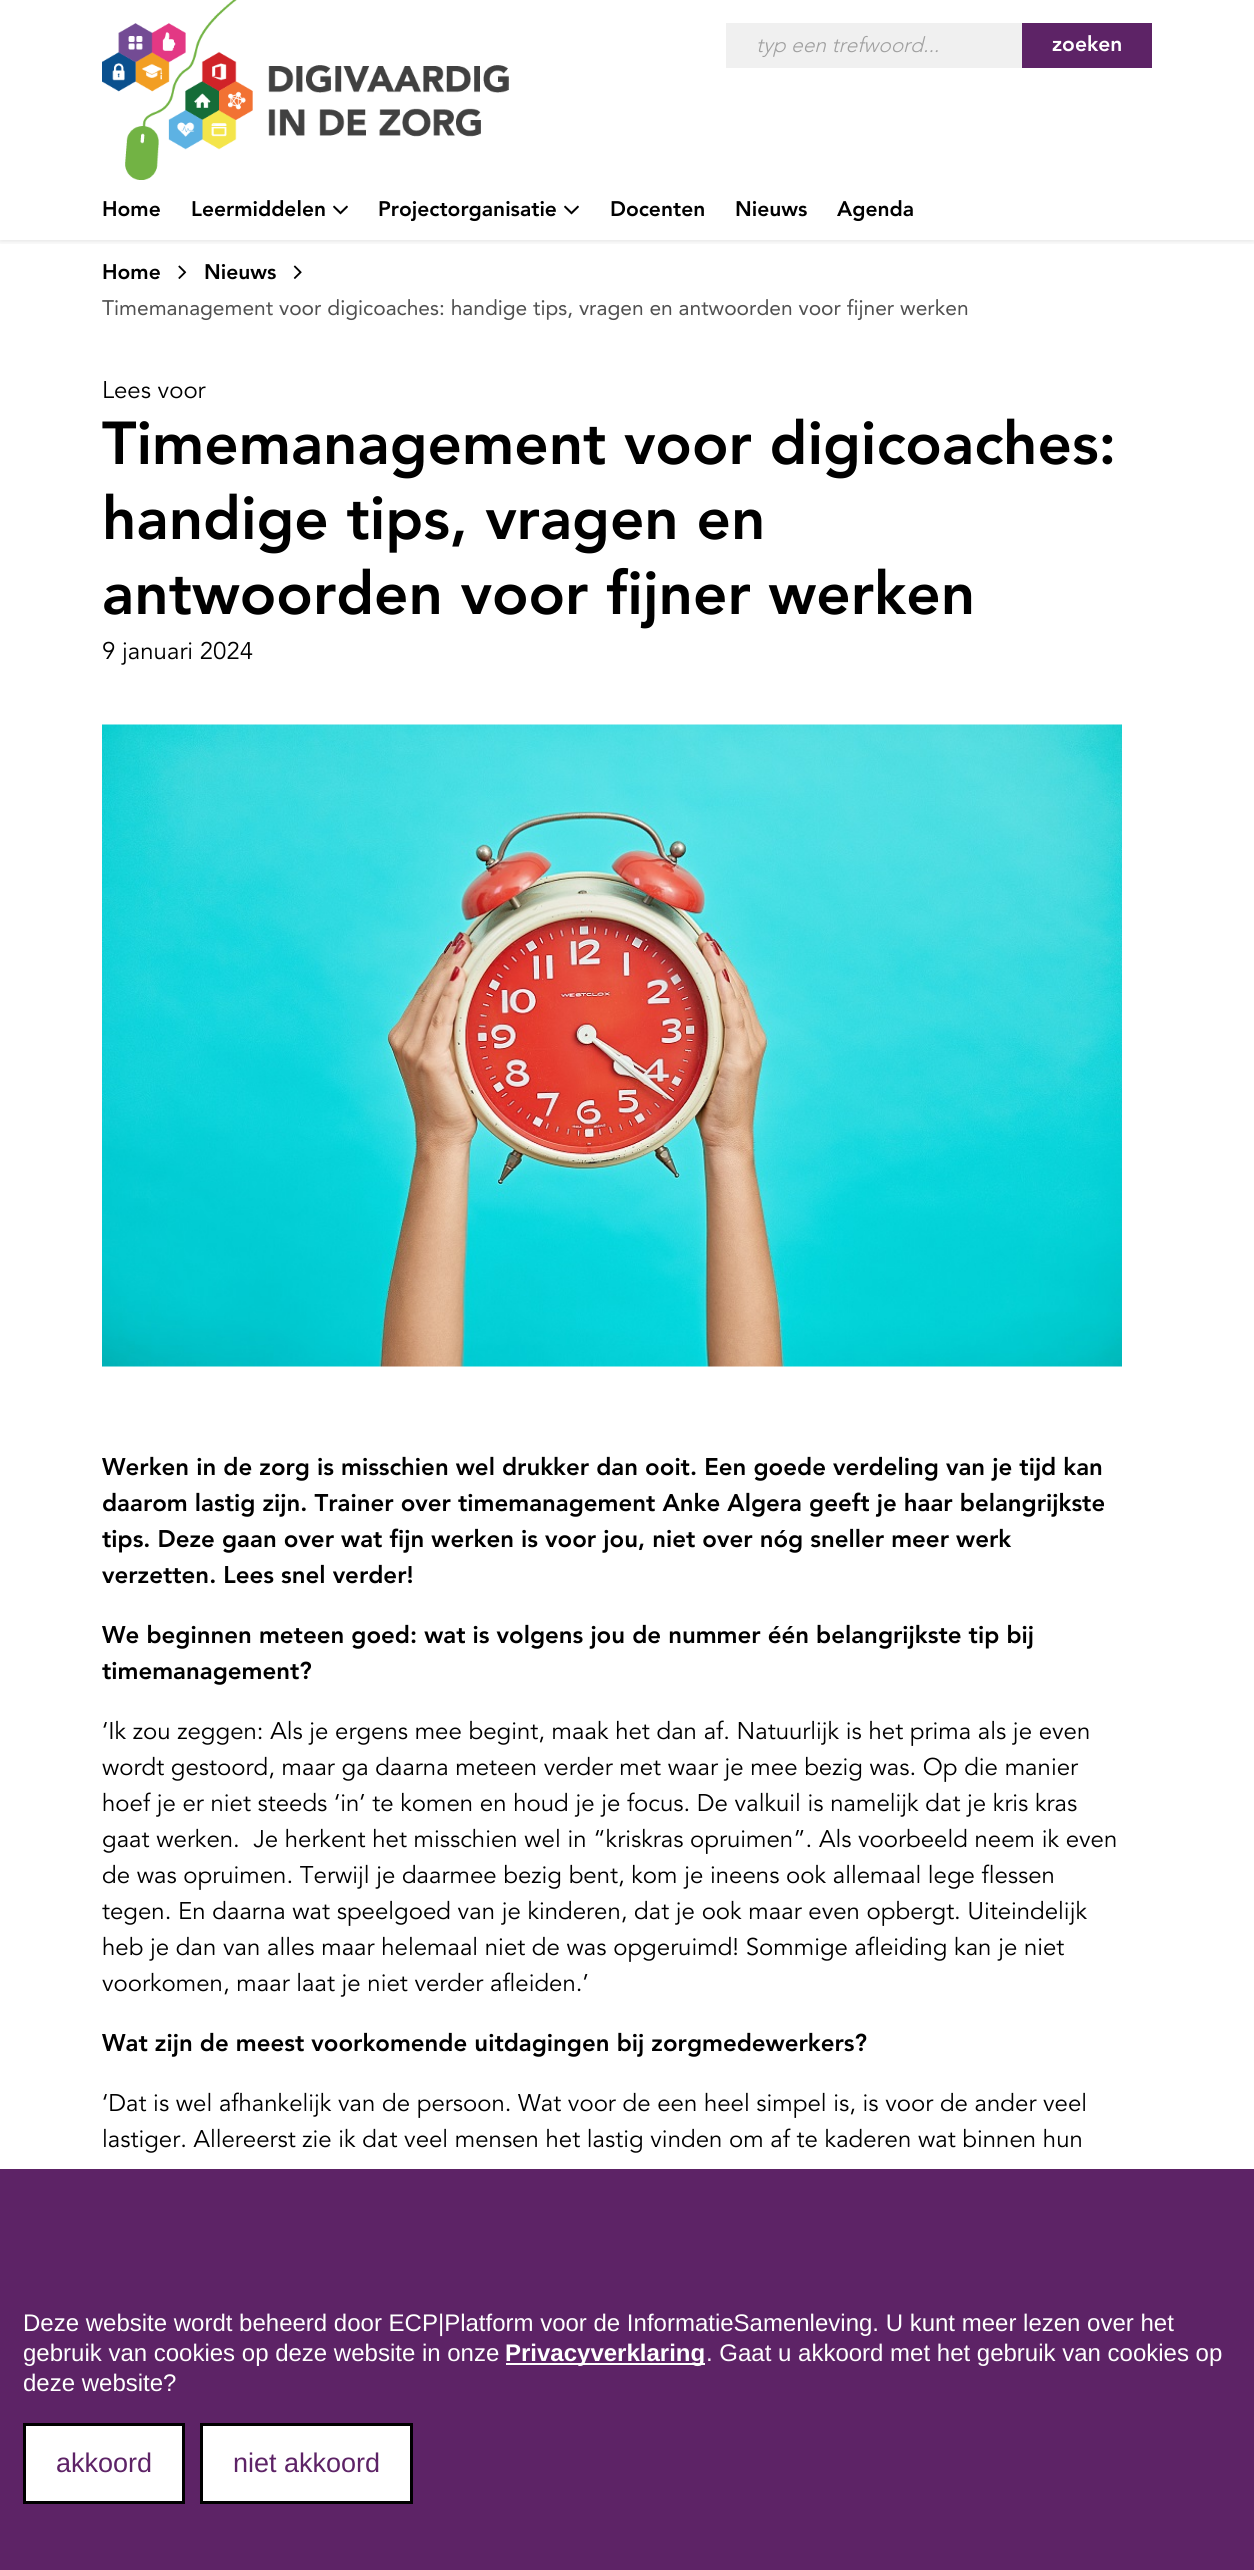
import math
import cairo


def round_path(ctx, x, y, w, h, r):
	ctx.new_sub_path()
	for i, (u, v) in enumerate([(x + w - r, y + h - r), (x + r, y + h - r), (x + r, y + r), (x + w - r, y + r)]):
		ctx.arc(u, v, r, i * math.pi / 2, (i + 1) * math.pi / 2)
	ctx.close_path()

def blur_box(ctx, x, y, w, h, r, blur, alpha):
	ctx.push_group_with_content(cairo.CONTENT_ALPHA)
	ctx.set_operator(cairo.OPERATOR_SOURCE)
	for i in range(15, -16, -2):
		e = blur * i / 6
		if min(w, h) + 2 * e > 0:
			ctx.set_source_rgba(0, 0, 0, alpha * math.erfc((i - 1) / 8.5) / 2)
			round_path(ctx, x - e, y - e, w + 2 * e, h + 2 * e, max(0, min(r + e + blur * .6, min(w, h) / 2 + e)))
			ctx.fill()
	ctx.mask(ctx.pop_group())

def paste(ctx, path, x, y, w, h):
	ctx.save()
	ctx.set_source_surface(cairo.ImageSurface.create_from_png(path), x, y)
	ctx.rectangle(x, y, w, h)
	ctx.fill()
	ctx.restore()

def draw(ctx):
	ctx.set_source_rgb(1, 1, 1)
	ctx.paint()
	ctx.save()
	ctx.rectangle(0, 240, 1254, 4)
	ctx.clip()
	ctx.set_source_rgb(0, 0, 0)
	blur_box(ctx, 0, 0, 1254, 240, 0, 4, 0.15)
	ctx.restore()
	paste(ctx, 'media/1.png', 102, 0, 407, 180)
	ctx.set_source_rgb(0.941, 0.941, 0.941)
	ctx.rectangle(726, 23, 296, 45)
	ctx.fill()
	ctx.select_font_face('Avenir Light', cairo.FONT_SLANT_ITALIC)
	ctx.set_font_size(21)
	ctx.set_source_rgb(0.627, 0.627, 0.627)
	ctx.move_to(756, 52)
	ctx.show_text('typ een trefwoord...')
	ctx.set_source_rgb(0.365, 0.137, 0.4)
	ctx.rectangle(1022, 23, 130, 45)
	ctx.fill()
	ctx.select_font_face('Avenir Black')
	ctx.set_source_rgb(1, 1, 1)
	ctx.move_to(1052, 51)
	ctx.show_text('zoeken')
	ctx.set_source_rgb(0, 0, 0)
	ctx.move_to(102, 216)
	ctx.show_text('Home')
	ctx.move_to(191, 216)
	ctx.show_text('Leermiddelen')
	paste(ctx, 'media/2.png', 333, 205, 15, 10)
	ctx.move_to(378, 216)
	ctx.show_text('Projectorganisatie')
	paste(ctx, 'media/2.png', 564, 205, 15, 10)
	for x, y, s in [
		(610, 216, 'Docenten'),
		(735, 216, 'Nieuws'),
		(837, 216, 'Agenda'),
		(102, 279, 'Home'),
	]:
		ctx.move_to(x, y)
		ctx.show_text(s)
	paste(ctx, 'media/3.png', 178, 265, 9, 14)
	ctx.move_to(204, 279)
	ctx.show_text('Nieuws')
	paste(ctx, 'media/4.png', 293, 265, 9, 14)
	ctx.select_font_face('Avenir')
	ctx.set_source_rgb(0.314, 0.314, 0.314)
	ctx.move_to(102, 315)
	ctx.show_text('Timemanagement voor digicoaches: handige tips, vragen en antwoorden voor fijner werken')
	ctx.select_font_face('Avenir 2')
	ctx.set_font_size(24)
	ctx.set_source_rgb(0, 0, 0)
	ctx.move_to(102, 398)
	ctx.show_text('Lees voor')
	ctx.select_font_face('Avenir Black')
	ctx.set_font_size(60)
	for x, y, s in [
		(102, 464, 'Timemanagement voor digicoaches:'),
		(102, 539, 'handige tips, vragen en'),
		(102, 614, 'antwoorden voor fijner werken'),
	]:
		ctx.move_to(x, y)
		ctx.show_text(s)
	ctx.select_font_face('Avenir 2')
	ctx.set_font_size(24)
	ctx.move_to(102, 659)
	ctx.show_text('9 januari 2024')
	paste(ctx, 'media/5.png', 102, 724, 1020, 643)
	ctx.select_font_face('Avenir Black')
	for x, y, s in [
		(102, 1475, 'Werken in de zorg is misschien wel drukker dan ooit. Een goede verdeling van je tijd kan'),
		(102, 1511, 'daarom lastig zijn. Trainer over timemanagement Anke Algera geeft je haar belangrijkste'),
		(102, 1547, 'tips. Deze gaan over wat fijn werken is voor jou, niet over nóg sneller meer werk'),
		(102, 1583, 'verzetten. Lees snel verder!'),
		(102, 1643, 'We beginnen meteen goed: wat is volgens jou de nummer één belangrijkste tip bij'),
		(102, 1679, 'timemanagement?'),
	]:
		ctx.move_to(x, y)
		ctx.show_text(s)
	ctx.select_font_face('Avenir 2')
	for x, y, s in [
		(102, 1739, '‘Ik zou zeggen: Als je ergens mee begint, maak het dan af. Natuurlijk is het prima als je even'),
		(102, 1775, 'wordt gestoord, maar ga daarna meteen verder met waar je mee bezig was. Op die manier'),
		(102, 1811, 'hoef je er niet steeds ‘in’ te komen en houd je je focus. De valkuil is namelijk dat je kris kras'),
		(102, 1847, 'gaat werken.  Je herkent het misschien wel in “kriskras opruimen”. Als voorbeeld neem ik even'),
		(102, 1883, 'de was opruimen. Terwijl je daarmee bezig bent, kom je ineens ook allemaal lege flessen'),
		(102, 1919, 'tegen. En daarna wat speelgoed van je kinderen, dat je ook maar even opbergt. Uiteindelijk'),
		(102, 1955, 'heb je dan van alles maar helemaal niet de was opgeruimd! Sommige afleiding kan je niet'),
		(102, 1991, 'voorkomen, maar laat je niet verder afleiden.’'),
	]:
		ctx.move_to(x, y)
		ctx.show_text(s)
	ctx.select_font_face('Avenir Black')
	ctx.move_to(102, 2051)
	ctx.show_text('Wat zijn de meest voorkomende uitdagingen bij zorgmedewerkers?')
	ctx.select_font_face('Avenir 2')
	ctx.move_to(102, 2111)
	ctx.show_text('‘Dat is wel afhankelijk van de persoon. Wat voor de een heel simpel is, is voor de ander veel')
	ctx.move_to(102, 2147)
	ctx.show_text('lastiger. Allereerst zie ik dat veel mensen het lastig vinden om af te kaderen wat binnen hun')
	ctx.set_source_rgb(0.365, 0.137, 0.4)
	ctx.rectangle(0, 2169, 1254, 401)
	ctx.fill()
	ctx.select_font_face('Liberation Sans')
	ctx.set_source_rgb(1, 1, 1)
	ctx.move_to(23, 2331)
	ctx.show_text('Deze website wordt beheerd door ECP|Platform voor de InformatieSamenleving. U kunt meer lezen over het')
	ctx.move_to(23, 2361)
	ctx.show_text('gebruik van cookies op deze website in onze')
	ctx.rectangle(506, 2363, 199, 2)
	ctx.fill()
	ctx.select_font_face('Liberation Sans', cairo.FONT_SLANT_NORMAL, cairo.FONT_WEIGHT_BOLD)
	ctx.move_to(505, 2361)
	ctx.show_text('Privacyverklaring')
	ctx.select_font_face('Liberation Sans')
	ctx.move_to(706, 2361)
	ctx.show_text('. Gaat u akkoord met het gebruik van cookies op')
	ctx.move_to(23, 2391)
	ctx.show_text('deze website?')
	ctx.rectangle(24.5, 2424.5, 159, 78)
	ctx.fill_preserve()
	ctx.set_source_rgb(0, 0, 0)
	ctx.set_line_width(3)
	ctx.stroke()
	ctx.set_font_size(27)
	ctx.set_source_rgb(0.365, 0.137, 0.4)
	ctx.move_to(56, 2472)
	ctx.show_text('akkoord')
	ctx.set_source_rgb(1, 1, 1)
	ctx.rectangle(201.5, 2424.5, 210, 78)
	ctx.fill_preserve()
	ctx.set_source_rgb(0, 0, 0)
	ctx.stroke()
	ctx.set_source_rgb(0.365, 0.137, 0.4)
	ctx.move_to(233, 2472)
	ctx.show_text('niet akkoord')


surface = cairo.ImageSurface(cairo.FORMAT_RGB24, 1254, 2570)
ctx = cairo.Context(surface)
options = cairo.FontOptions()
options.set_hint_metrics(cairo.HINT_METRICS_OFF)
options.set_hint_style(cairo.HINT_STYLE_NONE)
ctx.set_font_options(options)
ctx.set_miter_limit(4)
draw(ctx)
surface.write_to_png('image.png')
